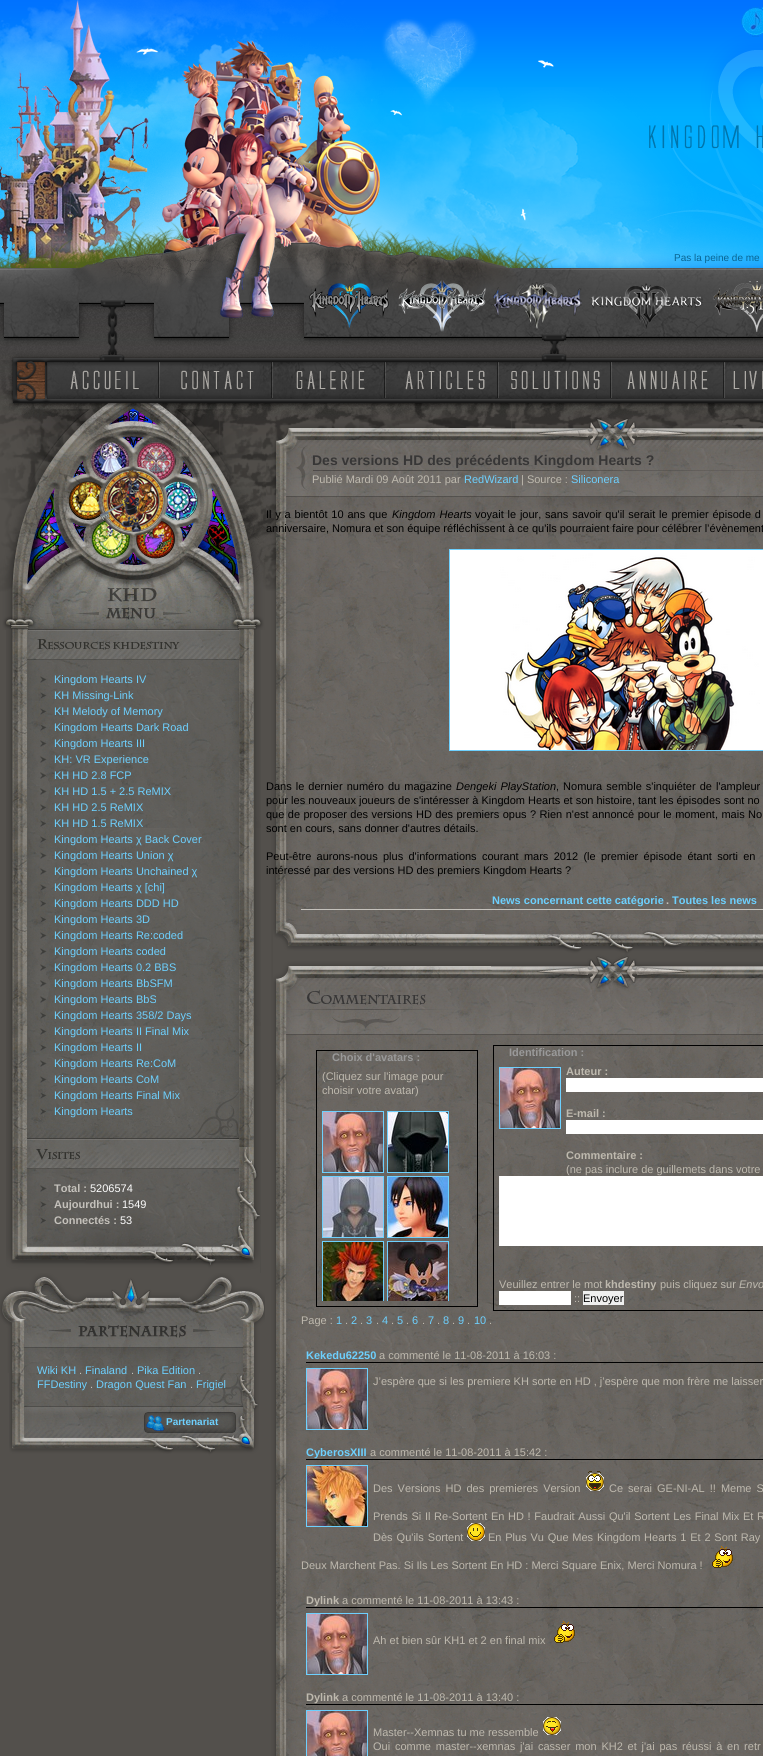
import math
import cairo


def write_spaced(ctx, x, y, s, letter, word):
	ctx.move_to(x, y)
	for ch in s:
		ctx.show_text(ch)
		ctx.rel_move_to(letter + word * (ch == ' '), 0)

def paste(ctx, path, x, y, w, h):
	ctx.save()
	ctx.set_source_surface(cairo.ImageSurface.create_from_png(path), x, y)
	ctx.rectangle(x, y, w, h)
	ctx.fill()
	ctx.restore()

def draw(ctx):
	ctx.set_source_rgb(0.325, 0.314, 0.298)
	ctx.paint()
	paste(ctx, 'media/3.png', 0, 0, 763, 630)
	paste(ctx, 'media/2.png', 759, 7, 4, 2)
	paste(ctx, 'media/1.png', 741, 7, 22, 30)
	ctx.select_font_face('Liberation Sans')
	ctx.set_font_size(10)
	ctx.set_source_rgb(0.039, 0.396, 0.573)
	ctx.move_to(674, 261)
	ctx.show_text('Pas la peine de me')
	paste(ctx, 'media/4.png', 309, 280, 454, 52)
	paste(ctx, 'media/5.png', 46, 362, 717, 36)
	paste(ctx, 'media/6.png', 6, 630, 255, 643)
	paste(ctx, 'media/7.png', 6, 1147, 254, 126)
	paste(ctx, 'media/8.png', 27, 1090, 212, 49)
	paste(ctx, 'media/9.png', 27, 630, 212, 30)
	paste(ctx, 'media/10.png', 40, 676, 7, 7)
	ctx.set_font_size(11)
	ctx.set_source_rgb(0.427, 0.816, 0.996)
	ctx.move_to(54, 683)
	ctx.show_text('Kingdom Hearts IV')
	paste(ctx, 'media/11.png', 40, 692, 7, 7)
	ctx.move_to(54, 699)
	ctx.show_text('KH Missing-Link')
	paste(ctx, 'media/12.png', 40, 708, 7, 7)
	ctx.move_to(54, 715)
	ctx.show_text('KH Melody of Memory')
	paste(ctx, 'media/13.png', 40, 724, 7, 7)
	ctx.move_to(54, 731)
	ctx.show_text('Kingdom Hearts Dark Road')
	paste(ctx, 'media/14.png', 40, 740, 7, 7)
	ctx.move_to(54, 747)
	ctx.show_text('Kingdom Hearts III')
	paste(ctx, 'media/15.png', 40, 756, 7, 7)
	ctx.move_to(54, 763)
	ctx.show_text('KH: VR Experience')
	paste(ctx, 'media/16.png', 40, 772, 6, 7)
	ctx.move_to(54, 779)
	ctx.show_text('KH HD 2.8 FCP')
	paste(ctx, 'media/17.png', 40, 788, 7, 7)
	ctx.move_to(54, 795)
	ctx.show_text('KH HD 1.5 + 2.5 ReMIX')
	paste(ctx, 'media/18.png', 40, 804, 6, 7)
	ctx.move_to(54, 811)
	ctx.show_text('KH HD 2.5 ReMIX')
	paste(ctx, 'media/19.png', 40, 820, 6, 7)
	ctx.move_to(54, 827)
	ctx.show_text('KH HD 1.5 ReMIX')
	paste(ctx, 'media/20.png', 40, 836, 7, 7)
	ctx.move_to(54, 843)
	ctx.show_text('Kingdom Hearts χ Back Cover')
	paste(ctx, 'media/21.png', 40, 852, 7, 7)
	ctx.move_to(54, 859)
	ctx.show_text('Kingdom Hearts Union χ')
	paste(ctx, 'media/22.png', 40, 868, 7, 7)
	ctx.move_to(54, 875)
	ctx.show_text('Kingdom Hearts Unchained χ')
	paste(ctx, 'media/23.png', 40, 884, 7, 7)
	ctx.move_to(54, 891)
	ctx.show_text('Kingdom Hearts χ [chi]')
	paste(ctx, 'media/24.png', 40, 900, 6, 7)
	ctx.move_to(54, 907)
	ctx.show_text('Kingdom Hearts DDD HD')
	paste(ctx, 'media/25.png', 40, 916, 6, 6)
	ctx.move_to(54, 923)
	ctx.show_text('Kingdom Hearts 3D')
	paste(ctx, 'media/26.png', 40, 932, 7, 7)
	ctx.move_to(54, 939)
	ctx.show_text('Kingdom Hearts Re:coded')
	paste(ctx, 'media/27.png', 40, 948, 7, 7)
	ctx.move_to(54, 955)
	ctx.show_text('Kingdom Hearts coded')
	paste(ctx, 'media/28.png', 40, 964, 6, 7)
	ctx.move_to(54, 971)
	ctx.show_text('Kingdom Hearts 0.2 BBS')
	paste(ctx, 'media/29.png', 40, 980, 7, 7)
	ctx.move_to(54, 987)
	ctx.show_text('Kingdom Hearts BbSFM')
	paste(ctx, 'media/30.png', 40, 996, 6, 7)
	ctx.move_to(54, 1003)
	ctx.show_text('Kingdom Hearts BbS')
	paste(ctx, 'media/31.png', 40, 1012, 6, 7)
	ctx.move_to(54, 1019)
	ctx.show_text('Kingdom Hearts 358/2 Days')
	paste(ctx, 'media/32.png', 40, 1028, 7, 7)
	ctx.move_to(54, 1035)
	ctx.show_text('Kingdom Hearts II Final Mix')
	paste(ctx, 'media/33.png', 40, 1044, 7, 7)
	ctx.move_to(54, 1051)
	ctx.show_text('Kingdom Hearts II')
	paste(ctx, 'media/34.png', 40, 1060, 7, 7)
	ctx.move_to(54, 1067)
	ctx.show_text('Kingdom Hearts Re:CoM')
	paste(ctx, 'media/35.png', 40, 1076, 7, 7)
	ctx.move_to(54, 1083)
	ctx.show_text('Kingdom Hearts CoM')
	paste(ctx, 'media/36.png', 40, 1093, 7, 6)
	ctx.move_to(54, 1099)
	ctx.show_text('Kingdom Hearts Final Mix')
	paste(ctx, 'media/37.png', 40, 1108, 6, 7)
	ctx.move_to(54, 1115)
	ctx.show_text('Kingdom Hearts')
	paste(ctx, 'media/38.png', 27, 1139, 212, 30)
	paste(ctx, 'media/39.png', 40, 1185, 7, 7)
	ctx.select_font_face('Liberation Sans', cairo.FONT_SLANT_NORMAL, cairo.FONT_WEIGHT_BOLD)
	ctx.set_source_rgb(0.769, 0.757, 0.733)
	ctx.move_to(54, 1192)
	ctx.show_text('Total :')
	ctx.select_font_face('Liberation Sans')
	ctx.set_source_rgb(0.996, 0.996, 0.996)
	ctx.move_to(90, 1192)
	ctx.show_text('5206574')
	paste(ctx, 'media/40.png', 40, 1201, 7, 7)
	ctx.select_font_face('Liberation Sans', cairo.FONT_SLANT_NORMAL, cairo.FONT_WEIGHT_BOLD)
	ctx.set_source_rgb(0.769, 0.757, 0.733)
	ctx.move_to(54, 1208)
	ctx.show_text('Aujourdhui :')
	ctx.select_font_face('Liberation Sans')
	ctx.set_source_rgb(0.996, 0.996, 0.996)
	ctx.move_to(122, 1208)
	ctx.show_text('1549')
	paste(ctx, 'media/41.png', 40, 1217, 6, 7)
	ctx.select_font_face('Liberation Sans', cairo.FONT_SLANT_NORMAL, cairo.FONT_WEIGHT_BOLD)
	ctx.set_source_rgb(0.769, 0.757, 0.733)
	ctx.move_to(54, 1224)
	ctx.show_text('Connectés :')
	ctx.select_font_face('Liberation Sans')
	ctx.set_source_rgb(0.996, 0.996, 0.996)
	ctx.move_to(120, 1224)
	ctx.show_text('53')
	paste(ctx, 'media/42.png', 9, 1373, 250, 87)
	paste(ctx, 'media/43.png', 0, 1273, 265, 100)
	ctx.set_source_rgb(0.427, 0.816, 0.996)
	ctx.move_to(37, 1374)
	ctx.show_text('Wiki KH')
	ctx.set_source_rgb(0.769, 0.757, 0.733)
	ctx.move_to(79, 1374)
	ctx.show_text('.')
	ctx.set_source_rgb(0.427, 0.816, 0.996)
	ctx.move_to(85, 1374)
	ctx.show_text('Finaland')
	ctx.set_source_rgb(0.769, 0.757, 0.733)
	ctx.move_to(131, 1374)
	ctx.show_text('.')
	ctx.set_source_rgb(0.427, 0.816, 0.996)
	ctx.move_to(137, 1374)
	ctx.show_text('Pika Edition')
	ctx.set_source_rgb(0.769, 0.757, 0.733)
	ctx.move_to(198, 1374)
	ctx.show_text('.')
	ctx.set_source_rgb(0.427, 0.816, 0.996)
	ctx.move_to(37, 1388)
	ctx.show_text('FFDestiny')
	ctx.set_source_rgb(0.769, 0.757, 0.733)
	ctx.move_to(90, 1388)
	ctx.show_text('.')
	ctx.set_source_rgb(0.427, 0.816, 0.996)
	ctx.move_to(96, 1388)
	ctx.show_text('Dragon Quest Fan')
	ctx.set_source_rgb(0.769, 0.757, 0.733)
	ctx.move_to(190, 1388)
	ctx.show_text('.')
	ctx.set_source_rgb(0.427, 0.816, 0.996)
	ctx.move_to(196, 1388)
	ctx.show_text('Frigiel')
	ctx.select_font_face('Liberation Sans', cairo.FONT_SLANT_NORMAL, cairo.FONT_WEIGHT_BOLD)
	ctx.set_font_size(10)
	ctx.move_to(166, 1425)
	ctx.show_text('Partenariat')
	paste(ctx, 'media/44.png', 266, 597, 497, 1159)
	paste(ctx, 'media/45.png', 266, 417, 497, 180)
	ctx.set_font_size(14)
	ctx.set_source_rgb(0.216, 0.212, 0.212)
	ctx.move_to(312, 465)
	ctx.show_text('Des versions HD des précédents Kingdom Hearts ?')
	ctx.select_font_face('Liberation Sans')
	ctx.set_font_size(11)
	ctx.set_source_rgb(0.745, 0.725, 0.682)
	ctx.move_to(312, 483)
	ctx.show_text('Publié Mardi 09 Août 2011 par')
	ctx.set_source_rgb(0.427, 0.816, 0.996)
	ctx.move_to(464, 483)
	ctx.show_text('RedWizard')
	ctx.set_source_rgb(0.745, 0.725, 0.682)
	ctx.move_to(521, 483)
	ctx.show_text('| Source :')
	ctx.set_source_rgb(0.427, 0.816, 0.996)
	ctx.move_to(571, 483)
	ctx.show_text('Siliconera')
	ctx.set_source_rgb(0, 0, 0)
	write_spaced(ctx, 266, 518, 'Il y a bientôt 10 ans que', 0, 0.75)
	ctx.select_font_face('Liberation Sans', cairo.FONT_SLANT_ITALIC)
	write_spaced(ctx, 392, 518, 'Kingdom Hearts', 0, 1)
	ctx.select_font_face('Liberation Sans')
	write_spaced(ctx, 475, 518, 'voyait le jour, sans savoir qu\'il serait le premier épisode d', 0, 0.75)
	ctx.move_to(266, 532)
	ctx.show_text('anniversaire, Nomura et son équipe réfléchissent à ce qu\'ils pourraient faire pour célébrer l’évènement')
	ctx.rectangle(449.5, 549.5, 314, 201)
	ctx.set_source_rgb(0.427, 0.816, 0.996)
	ctx.set_line_width(1)
	ctx.stroke()
	paste(ctx, 'media/46.png', 450, 550, 313, 200)
	ctx.set_source_rgb(0, 0, 0)
	write_spaced(ctx, 266, 790, 'Dans le dernier numéro du magazine', 0, 1)
	ctx.select_font_face('Liberation Sans', cairo.FONT_SLANT_ITALIC)
	write_spaced(ctx, 456, 790, 'Dengeki PlayStation', 0, 1)
	ctx.select_font_face('Liberation Sans')
	write_spaced(ctx, 556, 790, ', Nomura semble s\'inquiéter de l\'ampleur', 0, 1)
	ctx.move_to(266, 804)
	ctx.show_text('pour les nouveaux joueurs de s\'intéresser à Kingdom Hearts et son histoire, tant les épisodes sont no')
	write_spaced(ctx, 266, 818, 'que de proposer des versions HD des premiers opus ? Rien n\'est annoncé pour le moment, mais No', 0, 0.4)
	ctx.move_to(266, 832)
	ctx.show_text('sont en cours, sans donner d\'autres détails.')
	write_spaced(ctx, 266, 860, 'Peut-être aurons-nous plus d\'informations courant mars 2012 (le premier épisode étant sorti en', 0, 2.25)
	ctx.move_to(266, 874)
	ctx.show_text('intéressé par des versions HD des premiers Kingdom Hearts ?')
	ctx.set_source_rgb(0.769, 0.757, 0.733)
	ctx.rectangle(301, 909, 462, 1)
	ctx.fill()
	ctx.select_font_face('Liberation Sans', cairo.FONT_SLANT_NORMAL, cairo.FONT_WEIGHT_BOLD)
	ctx.set_source_rgb(0.427, 0.816, 0.996)
	ctx.move_to(492, 904)
	ctx.show_text('News concernant cette catégorie')
	ctx.set_source_rgb(0.769, 0.757, 0.733)
	ctx.move_to(666, 904)
	ctx.show_text('.')
	ctx.set_source_rgb(0.427, 0.816, 0.996)
	ctx.move_to(672, 904)
	ctx.show_text('Toutes les news')
	paste(ctx, 'media/47.png', 273, 921, 490, 114)
	ctx.rectangle(316.5, 1050.5, 161, 256)
	ctx.set_source_rgb(0, 0, 0)
	ctx.stroke()
	ctx.set_source_rgb(0.6, 0.6, 0.6)
	ctx.move_to(332, 1061)
	ctx.show_text('Choix d\'avatars :')
	ctx.select_font_face('Liberation Sans')
	ctx.set_source_rgb(0.745, 0.725, 0.682)
	ctx.move_to(322, 1080)
	ctx.show_text('(Cliquez sur l\'image pour')
	ctx.move_to(322, 1094)
	ctx.show_text('choisir votre avatar)')
	ctx.rectangle(322.5, 1111.5, 61, 61)
	ctx.set_source_rgb(0.427, 0.816, 0.996)
	ctx.stroke()
	ctx.rectangle(387.5, 1111.5, 61, 61)
	ctx.stroke()
	paste(ctx, 'media/48.png', 323, 1112, 60, 60)
	paste(ctx, 'media/49.png', 388, 1112, 60, 60)
	ctx.rectangle(322.5, 1176.5, 61, 61)
	ctx.stroke()
	ctx.rectangle(387.5, 1176.5, 61, 61)
	ctx.stroke()
	paste(ctx, 'media/50.png', 323, 1177, 60, 60)
	paste(ctx, 'media/51.png', 388, 1177, 60, 60)
	ctx.save()
	ctx.rectangle(322, 1111, 150, 190)
	ctx.clip()
	ctx.rectangle(322.5, 1241.5, 61, 61)
	ctx.stroke()
	ctx.rectangle(387.5, 1241.5, 61, 61)
	ctx.stroke()
	ctx.restore()
	paste(ctx, 'media/52.png', 323, 1242, 60, 59)
	paste(ctx, 'media/53.png', 388, 1242, 60, 59)
	ctx.rectangle(493.5, 1045.5, 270, 265)
	ctx.set_source_rgb(0, 0, 0)
	ctx.stroke()
	ctx.select_font_face('Liberation Sans', cairo.FONT_SLANT_NORMAL, cairo.FONT_WEIGHT_BOLD)
	ctx.set_source_rgb(0.6, 0.6, 0.6)
	ctx.move_to(509, 1056)
	ctx.show_text('Identification :')
	ctx.rectangle(499.5, 1067.5, 61, 61)
	ctx.set_source_rgb(0.427, 0.816, 0.996)
	ctx.stroke()
	paste(ctx, 'media/48.png', 500, 1068, 60, 60)
	ctx.set_source_rgb(0.745, 0.725, 0.682)
	ctx.move_to(566, 1075)
	ctx.show_text('Auteur :')
	ctx.set_source_rgb(1, 1, 1)
	ctx.rectangle(566, 1078, 197, 14)
	ctx.fill()
	ctx.set_source_rgb(0.745, 0.725, 0.682)
	ctx.move_to(566, 1117)
	ctx.show_text('E-mail :')
	ctx.set_source_rgb(1, 1, 1)
	ctx.rectangle(566, 1120, 197, 14)
	ctx.fill()
	ctx.set_source_rgb(0.745, 0.725, 0.682)
	ctx.move_to(566, 1159)
	ctx.show_text('Commentaire :')
	ctx.select_font_face('Liberation Sans')
	ctx.move_to(566, 1173)
	ctx.show_text('(ne pas inclure de guillemets dans votre')
	ctx.set_source_rgb(1, 1, 1)
	ctx.rectangle(499, 1176, 264, 70)
	ctx.fill()
	ctx.set_source_rgb(0.745, 0.725, 0.682)
	ctx.move_to(499, 1288)
	ctx.show_text('Veuillez entrer le mot')
	ctx.select_font_face('Liberation Sans', cairo.FONT_SLANT_NORMAL, cairo.FONT_WEIGHT_BOLD)
	ctx.move_to(605, 1288)
	ctx.show_text('khdestiny')
	ctx.select_font_face('Liberation Sans')
	ctx.move_to(660, 1288)
	ctx.show_text('puis cliquez sur')
	ctx.select_font_face('Liberation Sans', cairo.FONT_SLANT_ITALIC)
	ctx.move_to(739, 1288)
	ctx.show_text('Envo')
	ctx.set_source_rgb(1, 1, 1)
	ctx.rectangle(499, 1291, 72, 14)
	ctx.fill()
	ctx.select_font_face('Liberation Sans')
	ctx.set_source_rgb(0.745, 0.725, 0.682)
	ctx.move_to(574, 1302)
	ctx.show_text('::')
	ctx.set_source_rgb(0.937, 0.937, 0.937)
	ctx.rectangle(583, 1291, 41, 14)
	ctx.fill()
	ctx.set_source_rgb(0, 0, 0)
	ctx.move_to(583, 1302)
	ctx.show_text('Envoyer')
	ctx.set_source_rgb(0.745, 0.725, 0.682)
	ctx.move_to(301, 1324)
	ctx.show_text('Page :')
	ctx.set_source_rgb(0.427, 0.816, 0.996)
	ctx.move_to(336, 1324)
	ctx.show_text('1')
	ctx.set_source_rgb(0.745, 0.725, 0.682)
	ctx.move_to(345, 1324)
	ctx.show_text('.')
	ctx.set_source_rgb(0.427, 0.816, 0.996)
	ctx.move_to(351, 1324)
	ctx.show_text('2')
	ctx.set_source_rgb(0.745, 0.725, 0.682)
	ctx.move_to(360, 1324)
	ctx.show_text('.')
	ctx.set_source_rgb(0.427, 0.816, 0.996)
	ctx.move_to(366, 1324)
	ctx.show_text('3')
	ctx.set_source_rgb(0.745, 0.725, 0.682)
	ctx.move_to(376, 1324)
	ctx.show_text('.')
	ctx.set_source_rgb(0.427, 0.816, 0.996)
	ctx.move_to(382, 1324)
	ctx.show_text('4')
	ctx.set_source_rgb(0.745, 0.725, 0.682)
	ctx.move_to(391, 1324)
	ctx.show_text('.')
	ctx.set_source_rgb(0.427, 0.816, 0.996)
	ctx.move_to(397, 1324)
	ctx.show_text('5')
	ctx.set_source_rgb(0.745, 0.725, 0.682)
	ctx.move_to(406, 1324)
	ctx.show_text('.')
	ctx.set_source_rgb(0.427, 0.816, 0.996)
	ctx.move_to(412, 1324)
	ctx.show_text('6')
	ctx.set_source_rgb(0.745, 0.725, 0.682)
	ctx.move_to(422, 1324)
	ctx.show_text('.')
	ctx.set_source_rgb(0.427, 0.816, 0.996)
	ctx.move_to(428, 1324)
	ctx.show_text('7')
	ctx.set_source_rgb(0.745, 0.725, 0.682)
	ctx.move_to(437, 1324)
	ctx.show_text('.')
	ctx.set_source_rgb(0.427, 0.816, 0.996)
	ctx.move_to(443, 1324)
	ctx.show_text('8')
	ctx.set_source_rgb(0.745, 0.725, 0.682)
	ctx.move_to(452, 1324)
	ctx.show_text('.')
	ctx.set_source_rgb(0.427, 0.816, 0.996)
	ctx.move_to(458, 1324)
	ctx.show_text('9')
	ctx.set_source_rgb(0.745, 0.725, 0.682)
	ctx.move_to(467, 1324)
	ctx.show_text('.')
	ctx.set_source_rgb(0.427, 0.816, 0.996)
	ctx.move_to(474, 1324)
	ctx.show_text('10')
	ctx.set_source_rgb(0.745, 0.725, 0.682)
	ctx.move_to(489, 1324)
	ctx.show_text('.')
	ctx.set_source_rgb(0, 0, 0)
	ctx.rectangle(306, 1362, 457, 1)
	ctx.fill()
	ctx.select_font_face('Liberation Sans', cairo.FONT_SLANT_NORMAL, cairo.FONT_WEIGHT_BOLD)
	ctx.set_source_rgb(0.427, 0.816, 0.996)
	ctx.move_to(306, 1359)
	ctx.show_text('Kekedu62250')
	ctx.select_font_face('Liberation Sans')
	ctx.set_source_rgb(0.745, 0.725, 0.682)
	ctx.move_to(379, 1359)
	ctx.show_text('a commenté le 11-08-2011 à 16:03 :')
	ctx.rectangle(306.5, 1368.5, 61, 61)
	ctx.set_source_rgb(0.427, 0.816, 0.996)
	ctx.stroke()
	paste(ctx, 'media/48.png', 307, 1369, 60, 60)
	ctx.set_source_rgb(0.745, 0.725, 0.682)
	ctx.move_to(373, 1385)
	ctx.show_text('J’espère que si les premiere KH sorte en HD , j’espère que mon frère me laisser')
	ctx.set_source_rgb(0, 0, 0)
	ctx.rectangle(306, 1459, 457, 1)
	ctx.fill()
	ctx.select_font_face('Liberation Sans', cairo.FONT_SLANT_NORMAL, cairo.FONT_WEIGHT_BOLD)
	ctx.set_source_rgb(0.427, 0.816, 0.996)
	ctx.move_to(306, 1456)
	ctx.show_text('CyberosXIII')
	ctx.select_font_face('Liberation Sans')
	ctx.set_source_rgb(0.745, 0.725, 0.682)
	ctx.move_to(370, 1456)
	ctx.show_text('a commenté le 11-08-2011 à 15:42 :')
	ctx.rectangle(306.5, 1465.5, 61, 61)
	ctx.set_source_rgb(0.427, 0.816, 0.996)
	ctx.stroke()
	paste(ctx, 'media/54.png', 307, 1466, 60, 60)
	ctx.set_source_rgb(0.745, 0.725, 0.682)
	write_spaced(ctx, 373, 1492, 'Des Versions HD des premieres Version', 0, 2)
	paste(ctx, 'media/55.png', 586, 1471, 18, 20)
	write_spaced(ctx, 609, 1492, 'Ce serai GE-NI-AL !! Meme S', 0, 2)
	write_spaced(ctx, 373, 1520, 'Prends Si Il Re-Sortent En HD ! Faudrait Aussi Qu\'il Sortent Les Final Mix Et R', 0, 0.6)
	write_spaced(ctx, 373, 1541, 'Dès Qu\'ils Sortent', 0, 1)
	paste(ctx, 'media/56.png', 467, 1523, 18, 18)
	write_spaced(ctx, 488, 1541, 'En Plus Vu Que Mes Kingdom Hearts 1 Et 2 Sont Ray', 0, 0.75)
	ctx.move_to(301, 1569)
	ctx.show_text('Deux Marchent Pas. Si Ils Les Sortent En HD : Merci Square Enix, Merci Nomura !')
	paste(ctx, 'media/57.png', 712, 1546, 21, 22)
	ctx.set_source_rgb(0, 0, 0)
	ctx.rectangle(306, 1607, 457, 1)
	ctx.fill()
	ctx.select_font_face('Liberation Sans', cairo.FONT_SLANT_NORMAL, cairo.FONT_WEIGHT_BOLD)
	ctx.set_source_rgb(0.745, 0.725, 0.682)
	ctx.move_to(306, 1604)
	ctx.show_text('Dylink')
	ctx.select_font_face('Liberation Sans')
	ctx.move_to(342, 1604)
	ctx.show_text('a commenté le 11-08-2011 à 13:43 :')
	ctx.rectangle(306.5, 1613.5, 61, 61)
	ctx.set_source_rgb(0.427, 0.816, 0.996)
	ctx.stroke()
	paste(ctx, 'media/48.png', 307, 1614, 60, 60)
	ctx.set_source_rgb(0.745, 0.725, 0.682)
	ctx.move_to(373, 1644)
	ctx.show_text('Ah et bien sûr KH1 et 2 en final mix')
	paste(ctx, 'media/58.png', 554, 1621, 21, 22)
	ctx.set_source_rgb(0, 0, 0)
	ctx.rectangle(306, 1704, 457, 1)
	ctx.fill()
	ctx.select_font_face('Liberation Sans', cairo.FONT_SLANT_NORMAL, cairo.FONT_WEIGHT_BOLD)
	ctx.set_source_rgb(0.745, 0.725, 0.682)
	ctx.move_to(306, 1701)
	ctx.show_text('Dylink')
	ctx.select_font_face('Liberation Sans')
	ctx.move_to(342, 1701)
	ctx.show_text('a commenté le 11-08-2011 à 13:40 :')
	ctx.rectangle(306.5, 1710.5, 61, 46)
	ctx.set_source_rgb(0.427, 0.816, 0.996)
	ctx.stroke()
	paste(ctx, 'media/59.png', 307, 1711, 60, 45)
	ctx.set_source_rgb(0.745, 0.725, 0.682)
	ctx.move_to(373, 1736)
	ctx.show_text('Master--Xemnas tu me ressemble')
	paste(ctx, 'media/60.png', 543, 1717, 18, 18)
	write_spaced(ctx, 373, 1750, 'Oui comme master--xemnas j\'ai casser mon KH2 et j\'ai pas réussi à en retr', 0, 1.75)


surface = cairo.ImageSurface(cairo.FORMAT_RGB24, 763, 1756)
ctx = cairo.Context(surface)
options = cairo.FontOptions()
options.set_hint_metrics(cairo.HINT_METRICS_OFF)
options.set_hint_style(cairo.HINT_STYLE_NONE)
ctx.set_font_options(options)
ctx.set_miter_limit(4)
draw(ctx)
surface.write_to_png('image.png')
